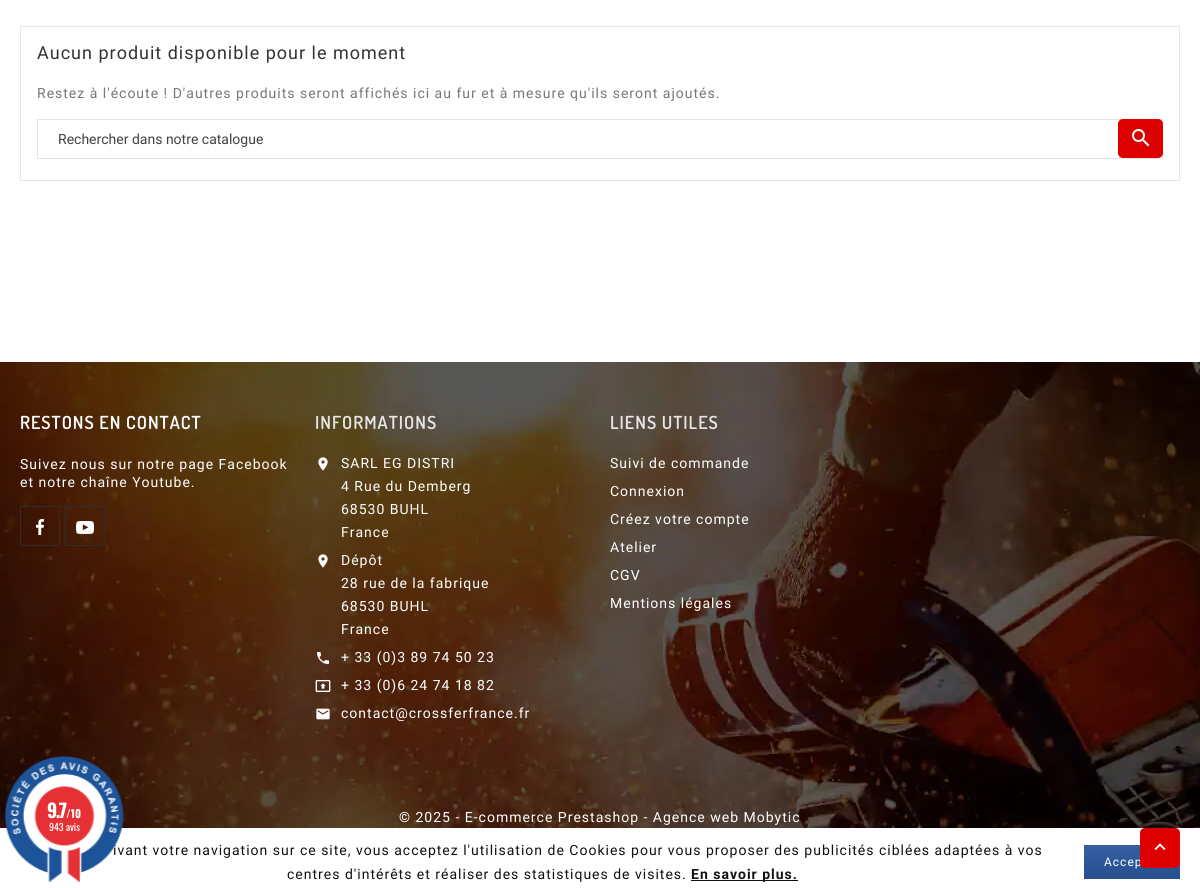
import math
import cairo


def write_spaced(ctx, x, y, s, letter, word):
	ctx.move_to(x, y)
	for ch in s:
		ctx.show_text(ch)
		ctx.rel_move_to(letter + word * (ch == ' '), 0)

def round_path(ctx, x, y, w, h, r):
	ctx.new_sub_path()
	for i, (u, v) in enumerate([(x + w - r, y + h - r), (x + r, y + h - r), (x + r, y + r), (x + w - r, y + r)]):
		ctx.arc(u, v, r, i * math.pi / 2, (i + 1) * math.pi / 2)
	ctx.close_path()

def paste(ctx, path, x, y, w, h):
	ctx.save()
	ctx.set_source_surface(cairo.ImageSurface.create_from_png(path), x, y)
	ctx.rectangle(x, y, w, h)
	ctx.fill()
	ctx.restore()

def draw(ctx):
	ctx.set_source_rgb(1, 1, 1)
	ctx.paint()
	ctx.rectangle(20.5, 26.5, 1159, 154)
	ctx.set_source_rgb(0.898, 0.898, 0.898)
	ctx.set_line_width(1)
	ctx.stroke()
	ctx.select_font_face('Roboto')
	ctx.set_font_size(18)
	ctx.set_source_rgb(0.2, 0.2, 0.2)
	write_spaced(ctx, 37, 59, 'Aucun produit disponible pour le moment', 1, 0)
	ctx.set_font_size(14)
	ctx.set_source_rgb(0.467, 0.467, 0.467)
	write_spaced(ctx, 37, 98, 'Restez à l\'écoute ! D\'autres produits seront affichés ici au fur et à mesure qu\'ils seront ajoutés.', 1, 0)
	ctx.rectangle(37.5, 119.5, 1125, 39)
	ctx.set_source_rgb(0.898, 0.898, 0.898)
	ctx.stroke()
	ctx.set_source_rgb(0.255, 0.255, 0.255)
	ctx.move_to(58, 144)
	ctx.show_text('Rechercher dans notre catalogue')
	ctx.set_source_rgb(0.871, 0, 0.004)
	round_path(ctx, 1118, 119, 45, 39, 5)
	ctx.fill()
	paste(ctx, 'media/1.png', 1132, 129, 18, 18)
	paste(ctx, 'media/2.png', 0, 362, 1200, 466)
	ctx.select_font_face('Dosis SemiBold')
	ctx.set_font_size(18)
	ctx.set_source_rgb(1, 1, 1)
	write_spaced(ctx, 20, 429, 'RESTONS EN CONTACT', 1, 0)
	ctx.select_font_face('Roboto')
	ctx.set_font_size(14)
	write_spaced(ctx, 20, 469, 'Suivez nous sur notre page Facebook', 1, 0)
	write_spaced(ctx, 20, 487, 'et notre chaîne Youtube.', 1, 0)
	ctx.rectangle(20.5, 506.5, 39, 39)
	ctx.set_source_rgb(0.18, 0.18, 0.18)
	ctx.stroke()
	paste(ctx, 'media/3.png', 36, 519, 8, 16)
	ctx.rectangle(65.5, 506.5, 39, 39)
	ctx.stroke()
	paste(ctx, 'media/4.png', 76, 521, 18, 13)
	ctx.select_font_face('Dosis SemiBold')
	ctx.set_font_size(18)
	ctx.set_source_rgb(0.898, 0.898, 0.898)
	write_spaced(ctx, 315, 429, 'INFORMATIONS', 1, 0)
	paste(ctx, 'media/5.png', 318, 457, 10, 14)
	ctx.select_font_face('Roboto')
	ctx.set_font_size(14)
	ctx.set_source_rgb(1, 1, 1)
	for x, y, s in [
		(341, 468, 'SARL EG DISTRI'),
		(341, 491, '4 Rue du Demberg'),
		(341, 514, '68530 BUHL'),
		(341, 537, 'France'),
	]:
		write_spaced(ctx, x, y, s, 1, 0)
	paste(ctx, 'media/6.png', 318, 554, 10, 14)
	for x, y, s in [
		(341, 565, 'Dépôt'),
		(341, 588, '28 rue de la fabrique'),
		(341, 611, '68530 BUHL'),
		(341, 634, 'France'),
	]:
		write_spaced(ctx, x, y, s, 1, 0)
	paste(ctx, 'media/7.png', 317, 652, 12, 12)
	write_spaced(ctx, 341, 662, '+ 33 (0)3 89 74 50 23', 1, 0)
	paste(ctx, 'media/8.png', 315, 680, 16, 12)
	write_spaced(ctx, 341, 690, '+ 33 (0)6 24 74 18 82', 1, 0)
	paste(ctx, 'media/9.png', 316, 708, 14, 12)
	write_spaced(ctx, 341, 718, 'contact@crossferfrance.fr', 1, 0)
	ctx.select_font_face('Dosis SemiBold')
	ctx.set_font_size(18)
	ctx.set_source_rgb(0.898, 0.898, 0.898)
	write_spaced(ctx, 610, 429, 'LIENS UTILES', 1, 0)
	ctx.select_font_face('Roboto')
	ctx.set_font_size(14)
	ctx.set_source_rgb(1, 1, 1)
	for x, y, s in [
		(610, 468, 'Suivi de commande'),
		(610, 496, 'Connexion'),
		(610, 524, 'Créez votre compte'),
		(610, 552, 'Atelier'),
		(610, 580, 'CGV'),
		(610, 608, 'Mentions légales'),
		(399, 822, '© 2025 - E-commerce Prestashop - Agence web Mobytic'),
	]:
		write_spaced(ctx, x, y, s, 1, 0)
	gradient = cairo.LinearGradient(1132, 845, 1132, 879)
	gradient.add_color_stop_rgba(0, 0.208, 0.373, 0.624, 1)
	gradient.add_color_stop_rgba(1, 0.145, 0.31, 0.561, 1)
	ctx.set_source(gradient)
	ctx.rectangle(1084, 845, 96, 34)
	ctx.fill()
	ctx.set_font_size(12)
	ctx.set_source_rgb(1, 1, 1)
	write_spaced(ctx, 1104, 866, 'Accep', 1, 0)
	ctx.set_source_rgb(0.871, 0, 0.004)
	round_path(ctx, 1140, 828, 40, 40, 5)
	ctx.fill()
	paste(ctx, 'media/10.png', 1154, 843, 12, 7)
	ctx.set_font_size(14)
	ctx.set_source_rgb(0.067, 0.067, 0.067)
	write_spaced(ctx, 113, 855, 'ivant votre navigation sur ce site, vous acceptez l\'utilisation de Cookies pour vous proposer des publicités ciblées adaptées à vos', 1, 0)
	paste(ctx, 'media/11.png', 4, 756, 120, 127)
	ctx.select_font_face('Oswald', cairo.FONT_SLANT_NORMAL, cairo.FONT_WEIGHT_BOLD)
	ctx.set_font_size(19)
	ctx.set_source_rgb(1, 1, 1)
	write_spaced(ctx, 47, 818, '9.7', -1.5, 0)
	ctx.set_font_size(11)
	ctx.move_to(66, 818)
	ctx.show_text('/10')
	ctx.select_font_face('Oswald')
	ctx.set_font_size(10)
	ctx.move_to(49, 831)
	ctx.show_text('943 avis')
	ctx.select_font_face('Roboto')
	ctx.set_font_size(14)
	ctx.set_source_rgb(0.067, 0.067, 0.067)
	write_spaced(ctx, 287, 879, 'centres d\'intérêts et réaliser des statistiques de visites.', 1, 0)
	ctx.rectangle(691, 880, 107, 1)
	ctx.fill()
	ctx.select_font_face('Roboto', cairo.FONT_SLANT_NORMAL, cairo.FONT_WEIGHT_BOLD)
	write_spaced(ctx, 691, 879, 'En savoir plus.', 1, 0)


surface = cairo.ImageSurface(cairo.FORMAT_RGB24, 1200, 888)
ctx = cairo.Context(surface)
options = cairo.FontOptions()
options.set_hint_metrics(cairo.HINT_METRICS_OFF)
options.set_hint_style(cairo.HINT_STYLE_NONE)
ctx.set_font_options(options)
ctx.set_miter_limit(4)
draw(ctx)
surface.write_to_png('image.png')
